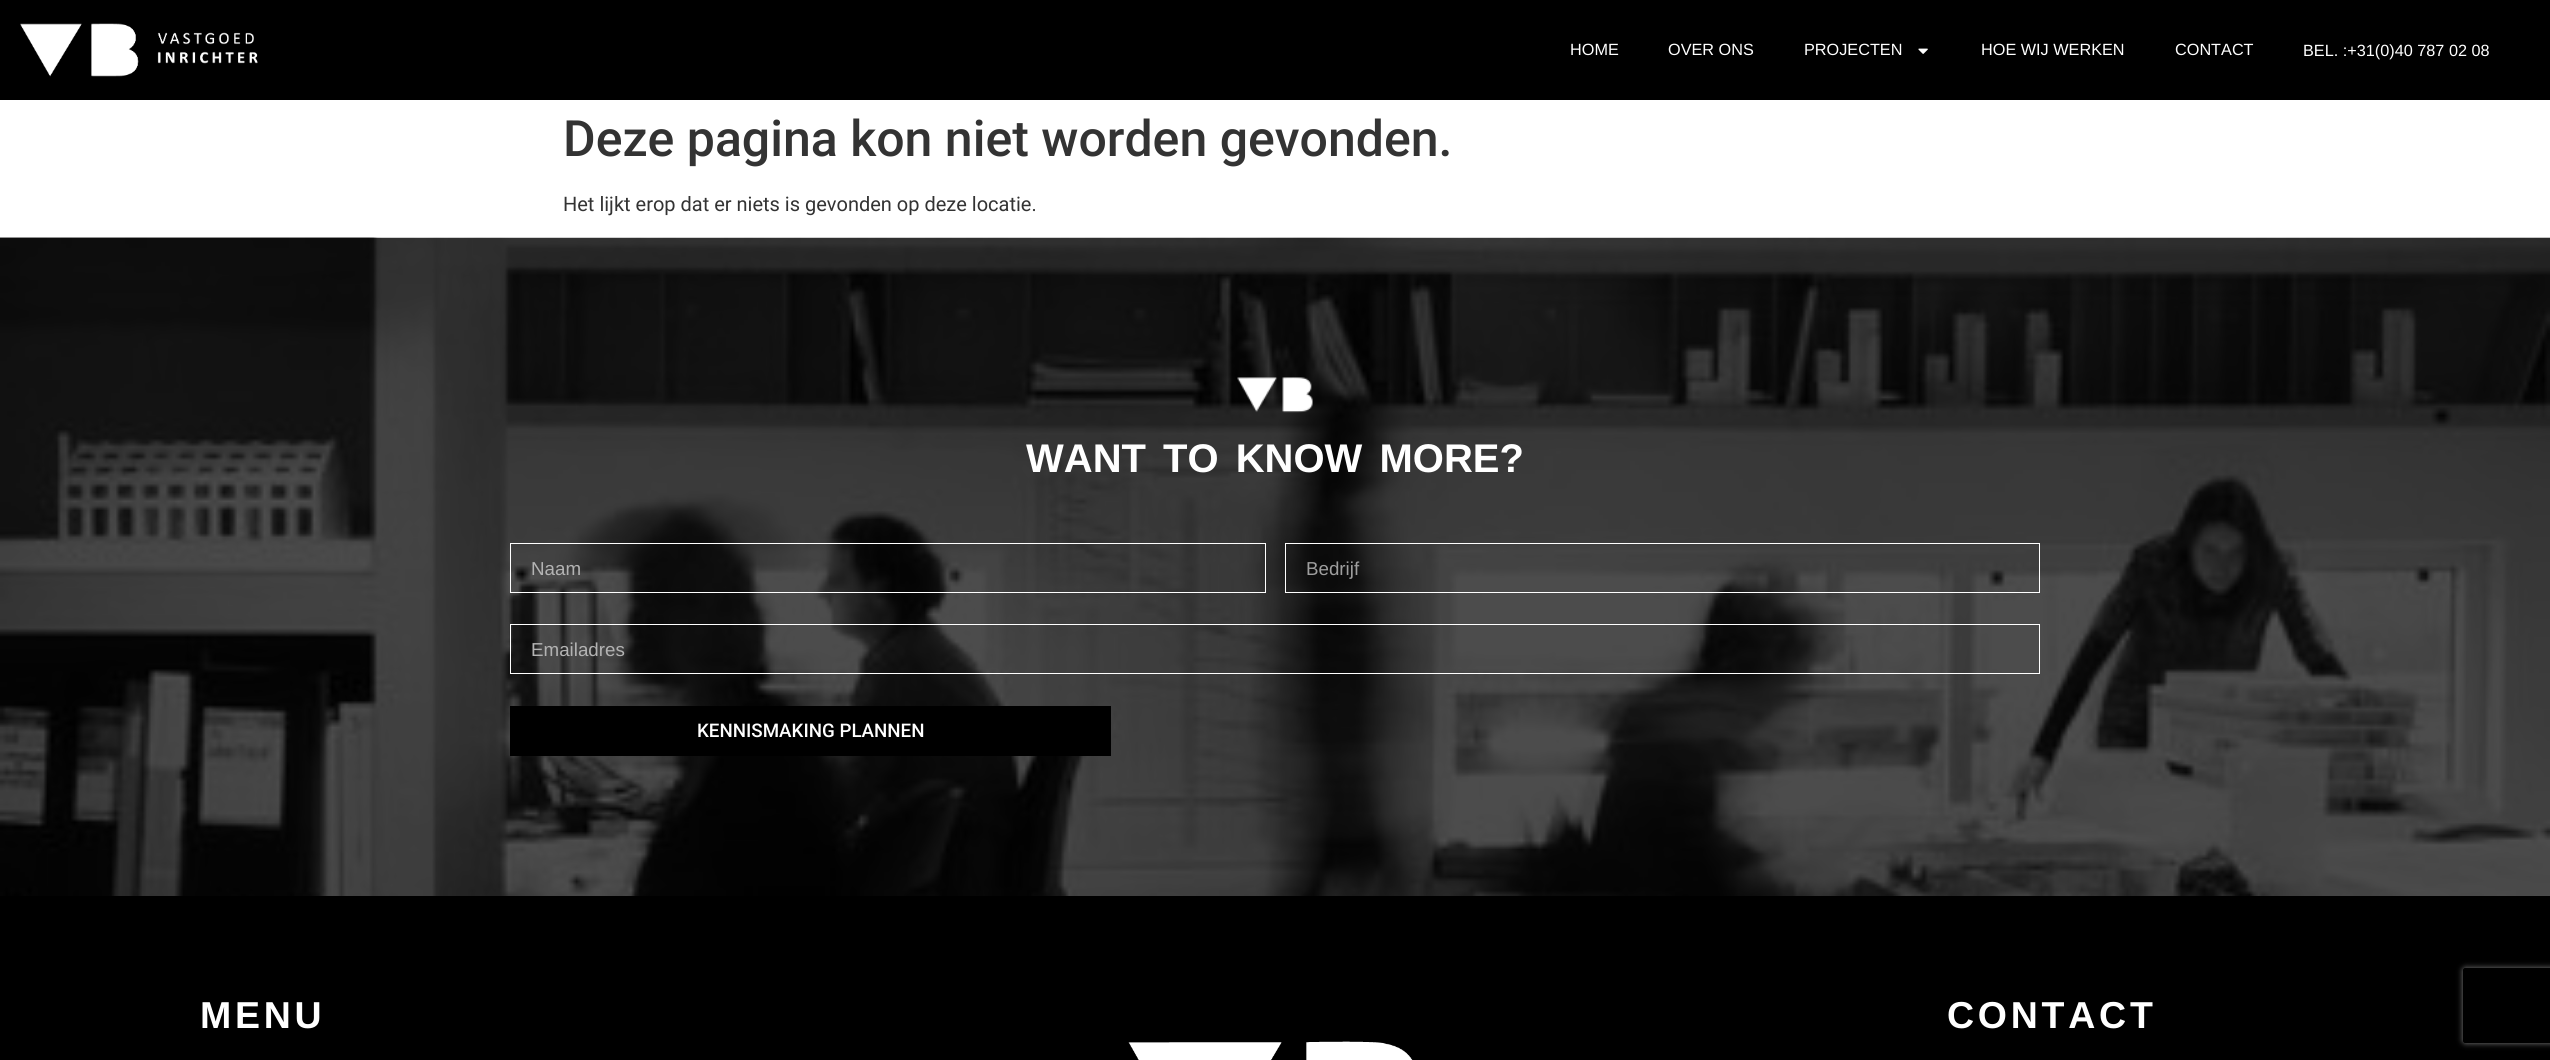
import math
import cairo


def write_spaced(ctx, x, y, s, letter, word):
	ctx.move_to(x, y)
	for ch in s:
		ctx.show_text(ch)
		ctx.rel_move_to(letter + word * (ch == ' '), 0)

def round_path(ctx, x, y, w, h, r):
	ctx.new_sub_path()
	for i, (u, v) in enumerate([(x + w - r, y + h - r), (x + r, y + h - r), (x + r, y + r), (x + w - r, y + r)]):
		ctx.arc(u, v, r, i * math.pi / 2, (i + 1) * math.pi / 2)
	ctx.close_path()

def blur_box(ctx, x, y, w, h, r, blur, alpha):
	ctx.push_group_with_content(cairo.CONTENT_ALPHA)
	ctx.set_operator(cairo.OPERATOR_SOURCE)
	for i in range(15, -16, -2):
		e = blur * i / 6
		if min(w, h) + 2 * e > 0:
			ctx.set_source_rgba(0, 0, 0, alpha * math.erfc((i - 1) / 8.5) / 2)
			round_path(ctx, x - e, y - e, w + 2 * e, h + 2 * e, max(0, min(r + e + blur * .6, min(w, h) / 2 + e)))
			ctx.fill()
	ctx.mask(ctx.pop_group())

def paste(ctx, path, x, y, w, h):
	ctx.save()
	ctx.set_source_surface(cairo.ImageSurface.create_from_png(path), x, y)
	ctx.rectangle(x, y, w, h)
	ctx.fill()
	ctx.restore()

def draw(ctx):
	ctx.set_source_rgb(1, 1, 1)
	ctx.paint()
	ctx.set_source_rgb(0, 0, 0)
	ctx.rectangle(0, 0, 2550, 100)
	ctx.fill()
	paste(ctx, 'media/1.png', 20, 23, 238, 54)
	ctx.select_font_face('Liberation Sans')
	ctx.set_font_size(16.25)
	ctx.set_source_rgb(1, 1, 1)
	for x, y, s in [
		(1570, 55, 'HOME'),
		(1668, 55, 'OVER ONS'),
		(1804, 55, 'PROJECTEN'),
	]:
		ctx.move_to(x, y)
		ctx.show_text(s)
	paste(ctx, 'media/2.png', 1918, 48, 10, 6)
	for x, y, s in [
		(1981, 55, 'HOE WIJ WERKEN'),
		(2175, 55, 'CONTACT'),
		(2303, 56, 'BEL. :+31(0)40 787 02 08'),
	]:
		ctx.move_to(x, y)
		ctx.show_text(s)
	ctx.select_font_face('Roboto Medium')
	ctx.set_font_size(50)
	ctx.set_source_rgb(0.2, 0.2, 0.2)
	ctx.move_to(563, 156)
	ctx.show_text('Deze pagina kon niet worden gevonden.')
	ctx.select_font_face('Roboto')
	ctx.set_font_size(20)
	ctx.move_to(563, 211)
	ctx.show_text('Het lijkt erop dat er niets is gevonden op deze locatie.')
	paste(ctx, 'media/3.png', 0, 237, 2550, 659)
	paste(ctx, 'media/4.png', 1237, 377, 76, 36)
	ctx.select_font_face('Liberation Sans', cairo.FONT_SLANT_NORMAL, cairo.FONT_WEIGHT_BOLD)
	ctx.set_font_size(40)
	ctx.set_source_rgb(1, 1, 1)
	write_spaced(ctx, 1026, 472, 'WANT TO KNOW MORE?', 0, 6)
	ctx.rectangle(510.5, 543.5, 755, 49)
	ctx.set_line_width(1)
	ctx.stroke()
	ctx.select_font_face('Liberation Sans')
	ctx.set_font_size(18.75)
	ctx.set_source_rgb(0.702, 0.702, 0.702)
	ctx.move_to(531, 575)
	ctx.show_text('Naam')
	ctx.rectangle(1285.5, 543.5, 754, 49)
	ctx.set_source_rgb(1, 1, 1)
	ctx.stroke()
	ctx.set_source_rgb(0.62, 0.62, 0.62)
	ctx.move_to(1306, 575)
	ctx.show_text('Bedrijf')
	ctx.rectangle(510.5, 624.5, 1529, 49)
	ctx.set_source_rgb(1, 1, 1)
	ctx.stroke()
	ctx.set_source_rgb(0.702, 0.702, 0.702)
	ctx.move_to(531, 656)
	ctx.show_text('Emailadres')
	ctx.set_source_rgb(0, 0, 0)
	ctx.rectangle(510, 706, 601, 50)
	ctx.fill()
	ctx.select_font_face('Roboto Medium')
	ctx.set_source_rgb(1, 1, 1)
	ctx.move_to(697, 737)
	ctx.show_text('KENNISMAKING PLANNEN')
	ctx.set_source_rgb(0, 0, 0)
	ctx.rectangle(0, 896, 2550, 164)
	ctx.fill()
	ctx.save()
	ctx.set_fill_rule(cairo.FILL_RULE_EVEN_ODD)
	ctx.new_path()
	ctx.move_to(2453, 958)
	ctx.line_to(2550, 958)
	ctx.line_to(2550, 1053)
	ctx.line_to(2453, 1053)
	ctx.close_path()
	ctx.move_to(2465.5, 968)
	ctx.line_to(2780.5, 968)
	ctx.curve_to(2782, 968, 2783, 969, 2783, 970.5)
	ctx.line_to(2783, 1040.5)
	ctx.curve_to(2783, 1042, 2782, 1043, 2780.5, 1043)
	ctx.line_to(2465.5, 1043)
	ctx.curve_to(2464, 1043, 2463, 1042, 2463, 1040.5)
	ctx.line_to(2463, 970.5)
	ctx.curve_to(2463, 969, 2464, 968, 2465.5, 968)
	ctx.close_path()
	ctx.clip()
	ctx.set_source_rgb(0.502, 0.502, 0.502)
	blur_box(ctx, 2463, 968, 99, 75, 2.5, 3, 1)
	ctx.restore()
	ctx.select_font_face('Liberation Sans', cairo.FONT_SLANT_NORMAL, cairo.FONT_WEIGHT_BOLD)
	ctx.set_font_size(37.5)
	ctx.set_source_rgb(1, 1, 1)
	write_spaced(ctx, 200, 1028, 'MENU', 3.75, 0)
	write_spaced(ctx, 1947, 1028, 'CONTACT', 3.75, 0)
	paste(ctx, 'media/5.png', 1128, 1041, 285, 19)


surface = cairo.ImageSurface(cairo.FORMAT_RGB24, 2550, 1060)
ctx = cairo.Context(surface)
options = cairo.FontOptions()
options.set_hint_metrics(cairo.HINT_METRICS_OFF)
options.set_hint_style(cairo.HINT_STYLE_NONE)
ctx.set_font_options(options)
ctx.set_miter_limit(4)
draw(ctx)
surface.write_to_png('image.png')
